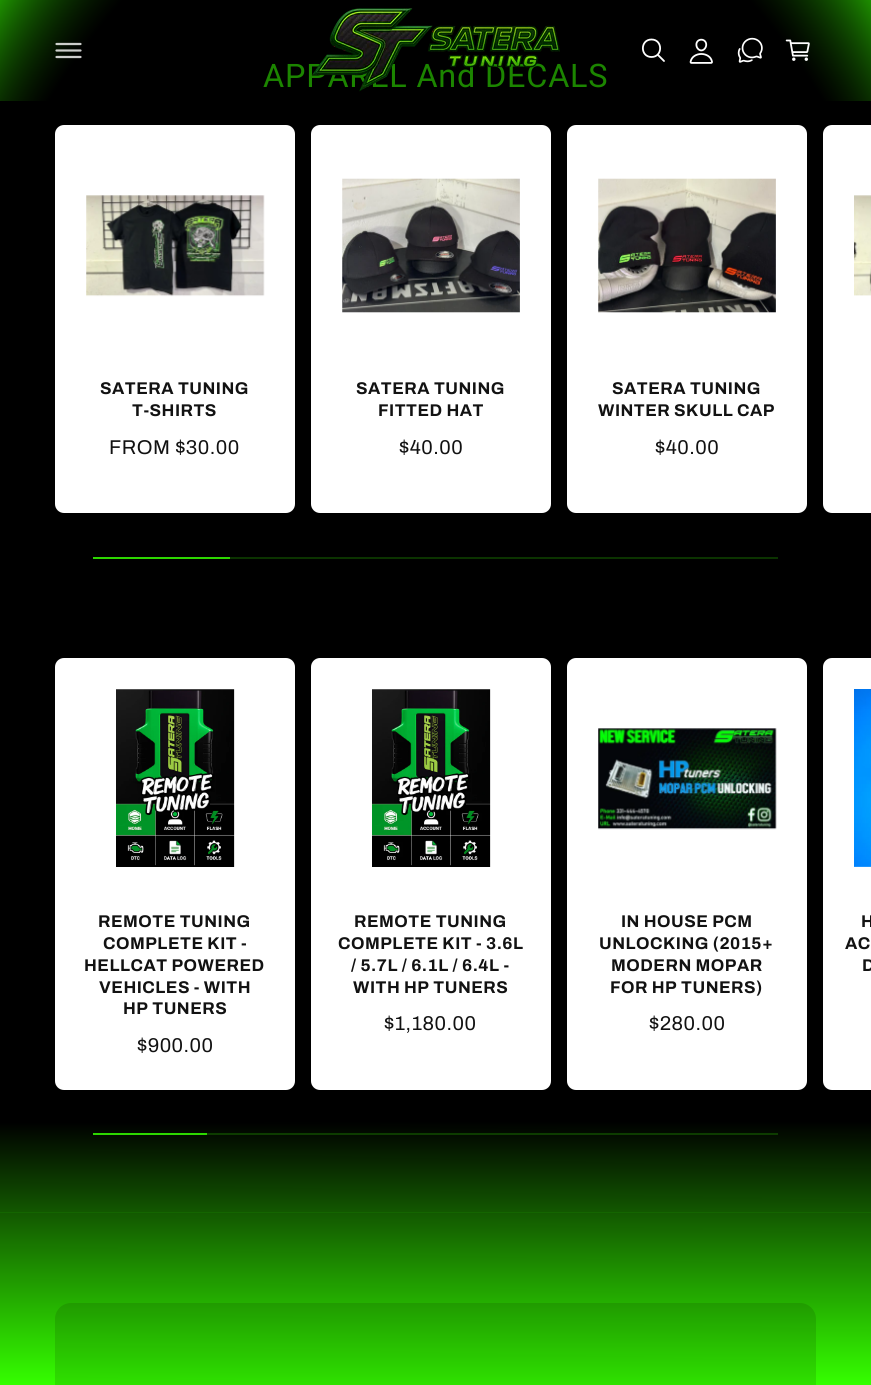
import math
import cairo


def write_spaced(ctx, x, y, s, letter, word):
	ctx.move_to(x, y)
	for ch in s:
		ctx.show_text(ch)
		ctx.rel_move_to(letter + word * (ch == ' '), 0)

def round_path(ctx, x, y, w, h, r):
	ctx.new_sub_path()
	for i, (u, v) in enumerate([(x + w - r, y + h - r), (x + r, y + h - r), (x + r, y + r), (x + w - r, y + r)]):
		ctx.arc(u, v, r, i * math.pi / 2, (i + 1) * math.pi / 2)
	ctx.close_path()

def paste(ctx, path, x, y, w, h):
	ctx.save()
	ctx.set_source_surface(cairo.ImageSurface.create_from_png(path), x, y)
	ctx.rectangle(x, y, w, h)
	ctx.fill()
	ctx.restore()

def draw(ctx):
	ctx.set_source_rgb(1, 1, 1)
	ctx.paint()
	gradient = cairo.LinearGradient(435, 0, 436, 1385)
	gradient.add_color_stop_rgba(0.81, 0, 0, 0, 1)
	gradient.add_color_stop_rgba(1, 0.208, 1, 0, 1)
	ctx.set_source(gradient)
	ctx.rectangle(0, 0, 871, 1385)
	ctx.fill()
	ctx.select_font_face('Roboto')
	ctx.set_font_size(32.4)
	ctx.set_source_rgb(0.208, 1, 0)
	write_spaced(ctx, 263, 87, 'APPAREL And DECALS', 0.8, 0)
	gradient = cairo.RadialGradient(0, 0, 0, 0, 0, 1)
	gradient.set_matrix(cairo.Matrix(1 / 616, 0, 0, 1 / 979, -1 * 436 / 616, -1 * 693 / 979))
	gradient.add_color_stop_rgba(0.87, 0, 0, 0, 0.48)
	gradient.add_color_stop_rgba(1, 0.118, 0.569, 0, 1)
	gradient.add_color_stop_rgba(1, 0.843, 0.8, 0.98, 1)
	ctx.set_source(gradient)
	ctx.rectangle(0, 0, 871, 101)
	ctx.fill()
	ctx.new_path()
	ctx.move_to(56.5, 44)
	ctx.line_to(80.5, 44)
	ctx.move_to(56.5, 50.5)
	ctx.line_to(80.5, 50.5)
	ctx.move_to(56.5, 57)
	ctx.line_to(80.5, 57)
	ctx.set_source_rgba(1, 1, 1, 0.8)
	ctx.set_line_width(2.2)
	ctx.set_line_cap(cairo.LINE_CAP_ROUND)
	ctx.stroke()
	paste(ctx, 'media/1.png', 311, 8, 249, 84)
	ctx.new_path()
	ctx.move_to(651.5, 39.5)
	ctx.curve_to(640, 39.5, 640, 57, 651.5, 57)
	ctx.curve_to(663, 57, 663, 39.5, 651.5, 39.5)
	ctx.close_path()
	ctx.set_source_rgb(1, 1, 1)
	ctx.set_line_width(1.8)
	ctx.set_line_cap(cairo.LINE_CAP_BUTT)
	ctx.stroke()
	ctx.new_path()
	ctx.move_to(658, 55)
	ctx.line_to(664, 61)
	ctx.set_line_cap(cairo.LINE_CAP_ROUND)
	ctx.stroke()
	paste(ctx, 'media/2.png', 689, 38, 24, 26)
	paste(ctx, 'media/3.png', 737, 37, 26, 26)
	paste(ctx, 'media/4.png', 785, 39, 25, 22)
	round_path(ctx, 55, 125, 240, 388, 9)
	ctx.fill()
	paste(ctx, 'media/5.png', 86, 195, 179, 102)
	ctx.select_font_face('Archivo', cairo.FONT_SLANT_NORMAL, cairo.FONT_WEIGHT_BOLD)
	ctx.set_font_size(17)
	ctx.set_source_rgb(0.071, 0.071, 0.071)
	write_spaced(ctx, 100, 394, 'SATERA TUNING', 0.5, 0)
	write_spaced(ctx, 132, 416, 'T-SHIRTS', 0.5, 0)
	ctx.select_font_face('Archivo')
	ctx.set_font_size(20)
	write_spaced(ctx, 109, 454, 'FROM $30.00', 0.5, 0)
	ctx.set_source_rgb(1, 1, 1)
	round_path(ctx, 311, 125, 240, 388, 9)
	ctx.fill()
	paste(ctx, 'media/6.png', 342, 178, 178, 135)
	ctx.select_font_face('Archivo', cairo.FONT_SLANT_NORMAL, cairo.FONT_WEIGHT_BOLD)
	ctx.set_font_size(17)
	ctx.set_source_rgb(0.071, 0.071, 0.071)
	write_spaced(ctx, 356, 394, 'SATERA TUNING', 0.5, 0)
	write_spaced(ctx, 378, 416, 'FITTED HAT', 0.5, 0)
	ctx.select_font_face('Archivo')
	ctx.set_font_size(20)
	write_spaced(ctx, 399, 454, '$40.00', 0.5, 0)
	ctx.set_source_rgb(1, 1, 1)
	round_path(ctx, 567, 125, 240, 388, 9)
	ctx.fill()
	paste(ctx, 'media/7.png', 598, 178, 178, 135)
	ctx.select_font_face('Archivo', cairo.FONT_SLANT_NORMAL, cairo.FONT_WEIGHT_BOLD)
	ctx.set_font_size(17)
	ctx.set_source_rgb(0.071, 0.071, 0.071)
	write_spaced(ctx, 612, 394, 'SATERA TUNING', 0.5, 0)
	write_spaced(ctx, 598, 416, 'WINTER SKULL CAP', 0.5, 0)
	ctx.select_font_face('Archivo')
	ctx.set_font_size(20)
	write_spaced(ctx, 655, 454, '$40.00', 0.5, 0)
	ctx.set_source_rgb(1, 1, 1)
	ctx.new_path()
	ctx.move_to(832, 125)
	ctx.line_to(871, 125)
	ctx.line_to(871, 513)
	ctx.line_to(832, 513)
	ctx.curve_to(827, 513, 823, 509, 823, 504)
	ctx.line_to(823, 134)
	ctx.curve_to(823, 129, 827, 125, 832, 125)
	ctx.close_path()
	ctx.fill()
	paste(ctx, 'media/8.png', 854, 195, 17, 101)
	ctx.set_source_rgb(0.043, 0.2, 0)
	ctx.rectangle(230, 557, 548, 2)
	ctx.fill()
	ctx.set_source_rgb(0.176, 0.839, 0)
	ctx.rectangle(93, 557, 137, 2)
	ctx.fill()
	ctx.set_source_rgb(1, 1, 1)
	round_path(ctx, 55, 658, 240, 432, 9)
	ctx.fill()
	paste(ctx, 'media/9.png', 116, 689, 119, 178)
	ctx.select_font_face('Archivo', cairo.FONT_SLANT_NORMAL, cairo.FONT_WEIGHT_BOLD)
	ctx.set_font_size(17)
	ctx.set_source_rgb(0.071, 0.071, 0.071)
	for x, y, s in [
		(98, 927, 'REMOTE TUNING'),
		(103, 949, 'COMPLETE KIT -'),
		(84, 971, 'HELLCAT POWERED'),
		(99, 993, 'VEHICLES - WITH'),
		(123, 1014, 'HP TUNERS'),
	]:
		write_spaced(ctx, x, y, s, 0.5, 0)
	ctx.select_font_face('Archivo')
	ctx.set_font_size(20)
	write_spaced(ctx, 137, 1052, '$900.00', 0.5, 0)
	ctx.set_source_rgb(1, 1, 1)
	round_path(ctx, 311, 658, 240, 432, 9)
	ctx.fill()
	paste(ctx, 'media/9.png', 372, 689, 119, 178)
	ctx.select_font_face('Archivo', cairo.FONT_SLANT_NORMAL, cairo.FONT_WEIGHT_BOLD)
	ctx.set_font_size(17)
	ctx.set_source_rgb(0.071, 0.071, 0.071)
	for x, y, s in [
		(354, 927, 'REMOTE TUNING'),
		(338, 949, 'COMPLETE KIT - 3.6L'),
		(351, 971, '/ 5.7L / 6.1L / 6.4L -'),
		(353, 993, 'WITH HP TUNERS'),
	]:
		write_spaced(ctx, x, y, s, 0.5, 0)
	ctx.select_font_face('Archivo')
	ctx.set_font_size(20)
	write_spaced(ctx, 384, 1030, '$1,180.00', 0.5, 0)
	ctx.set_source_rgb(1, 1, 1)
	round_path(ctx, 567, 658, 240, 432, 9)
	ctx.fill()
	paste(ctx, 'media/10.png', 598, 728, 179, 102)
	ctx.select_font_face('Archivo', cairo.FONT_SLANT_NORMAL, cairo.FONT_WEIGHT_BOLD)
	ctx.set_font_size(17)
	ctx.set_source_rgb(0.071, 0.071, 0.071)
	for x, y, s in [
		(621, 927, 'IN HOUSE PCM'),
		(599, 949, 'UNLOCKING (2015+'),
		(611, 971, 'MODERN MOPAR'),
		(610, 993, 'FOR HP TUNERS)'),
	]:
		write_spaced(ctx, x, y, s, 0.5, 0)
	ctx.select_font_face('Archivo')
	ctx.set_font_size(20)
	write_spaced(ctx, 649, 1030, '$280.00', 0.5, 0)
	ctx.set_source_rgb(1, 1, 1)
	ctx.new_path()
	ctx.move_to(832, 658)
	ctx.line_to(871, 658)
	ctx.line_to(871, 1090)
	ctx.line_to(832, 1090)
	ctx.curve_to(827, 1090, 823, 1086, 823, 1081)
	ctx.line_to(823, 667)
	ctx.curve_to(823, 662, 827, 658, 832, 658)
	ctx.close_path()
	ctx.fill()
	paste(ctx, 'media/11.png', 854, 689, 17, 178)
	ctx.select_font_face('Archivo', cairo.FONT_SLANT_NORMAL, cairo.FONT_WEIGHT_BOLD)
	ctx.set_font_size(17)
	ctx.set_source_rgb(0.071, 0.071, 0.071)
	for x, y, s in [
		(861, 927, 'H'),
		(845, 949, 'AC'),
		(862, 971, 'D'),
	]:
		write_spaced(ctx, x, y, s, 0.5, 0)
	ctx.set_source_rgb(0.051, 0.235, 0)
	ctx.rectangle(207, 1133, 571, 2)
	ctx.fill()
	ctx.set_source_rgb(0.176, 0.847, 0)
	ctx.rectangle(93, 1133, 114, 2)
	ctx.fill()
	ctx.set_source_rgb(0.082, 0.396, 0)
	ctx.rectangle(0, 1212, 871, 1)
	ctx.fill()
	ctx.set_source_rgba(0.02, 0.02, 0.02, 0.12)
	round_path(ctx, 55, 1303, 761, 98, 16)
	ctx.fill()


surface = cairo.ImageSurface(cairo.FORMAT_RGB24, 871, 1385)
ctx = cairo.Context(surface)
options = cairo.FontOptions()
options.set_hint_metrics(cairo.HINT_METRICS_OFF)
options.set_hint_style(cairo.HINT_STYLE_NONE)
ctx.set_font_options(options)
ctx.set_miter_limit(4)
draw(ctx)
surface.write_to_png('image.png')
